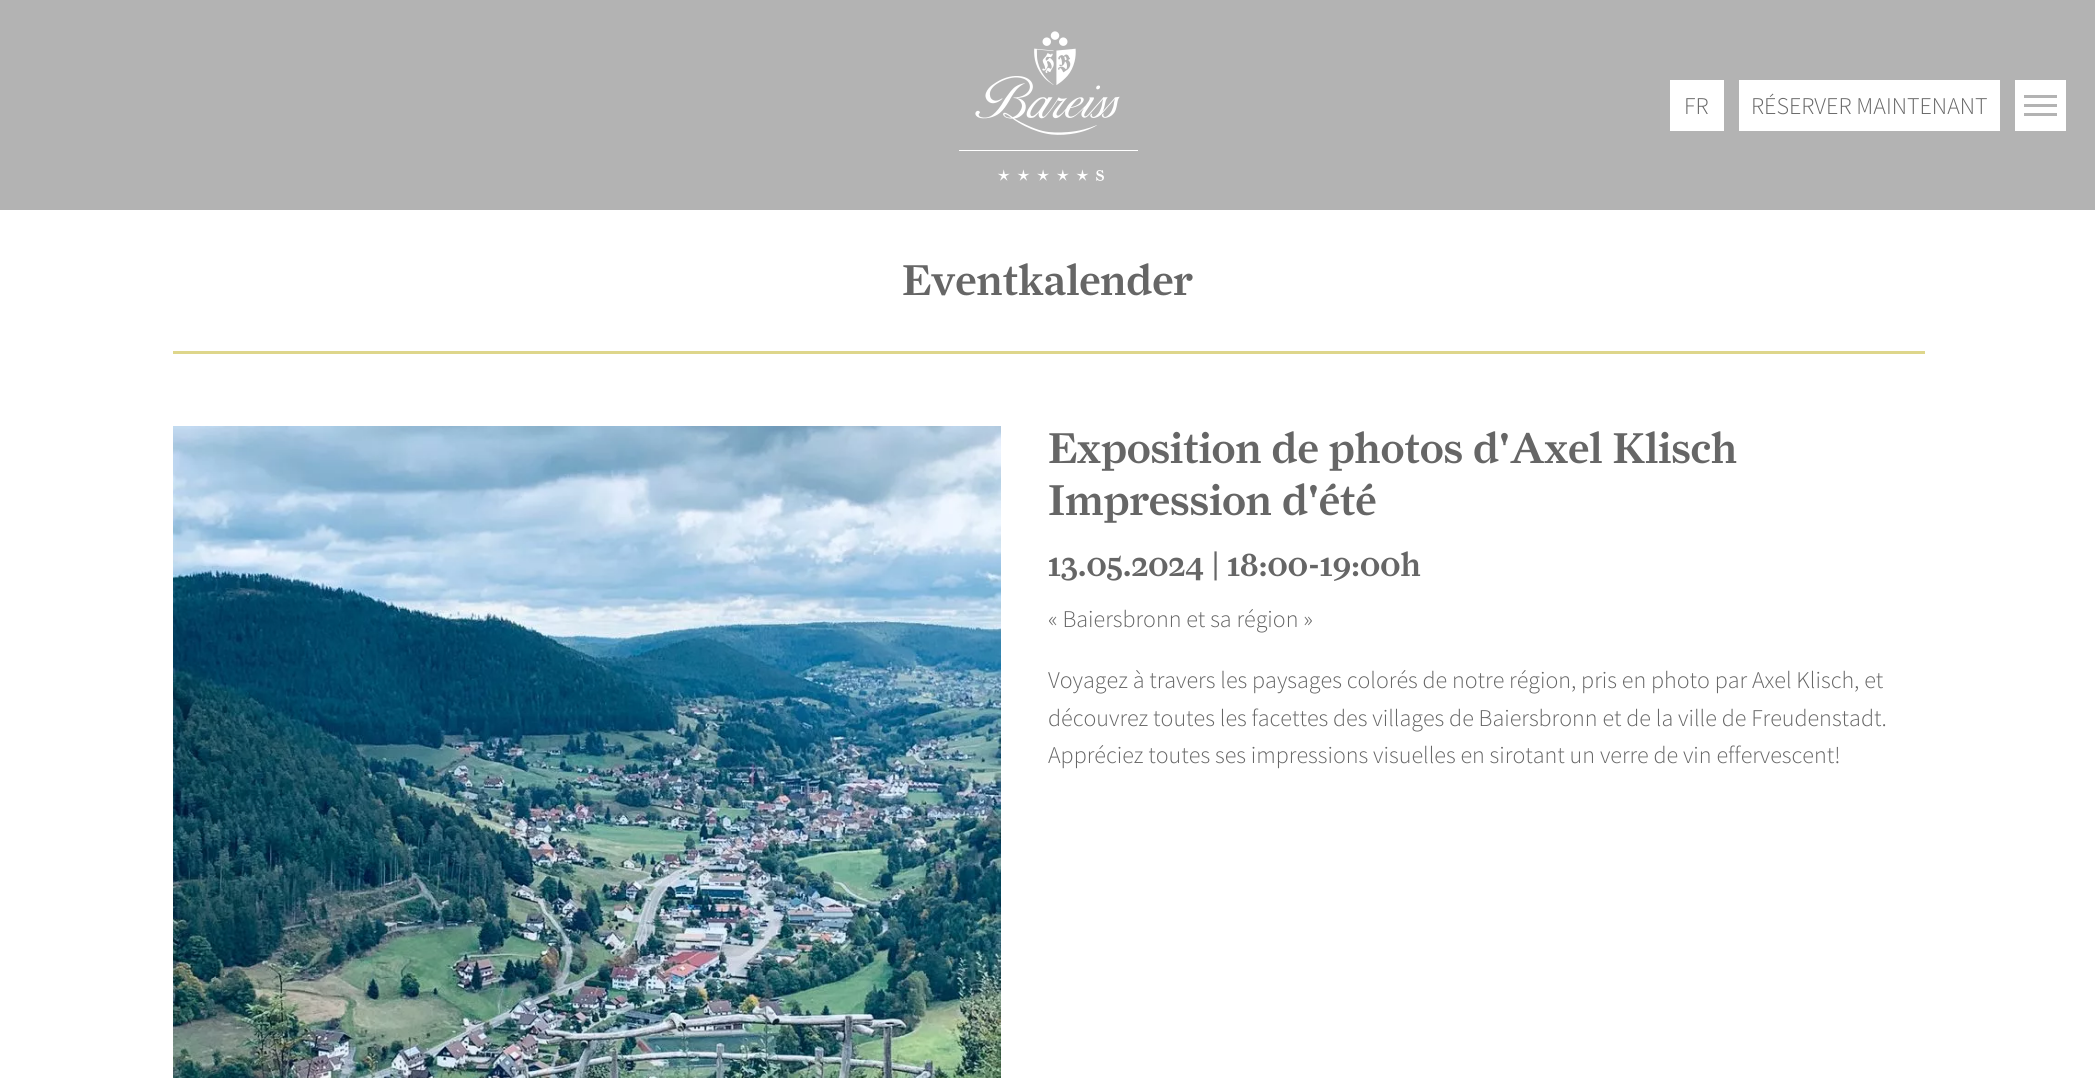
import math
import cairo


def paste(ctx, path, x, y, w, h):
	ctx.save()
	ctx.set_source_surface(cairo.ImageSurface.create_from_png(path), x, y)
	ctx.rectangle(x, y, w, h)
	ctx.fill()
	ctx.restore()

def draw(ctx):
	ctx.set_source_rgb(1, 1, 1)
	ctx.paint()
	ctx.set_source_rgb(0.702, 0.702, 0.702)
	ctx.rectangle(0, 0, 2095, 210)
	ctx.fill()
	paste(ctx, 'media/1.png', 959, 31, 179, 150)
	ctx.set_source_rgb(1, 1, 1)
	ctx.rectangle(1670, 80, 54, 51)
	ctx.fill()
	ctx.select_font_face('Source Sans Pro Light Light')
	ctx.set_font_size(24)
	ctx.set_source_rgb(0.4, 0.4, 0.4)
	ctx.move_to(1684, 114)
	ctx.show_text('FR')
	ctx.set_source_rgb(1, 1, 1)
	ctx.rectangle(1739, 80, 261, 51)
	ctx.fill()
	ctx.set_source_rgb(0.4, 0.4, 0.4)
	ctx.move_to(1751, 114)
	ctx.show_text('RÉSERVER MAINTENANT')
	ctx.set_source_rgb(1, 1, 1)
	ctx.rectangle(2015, 80, 51, 51)
	ctx.fill()
	ctx.set_source_rgb(0.702, 0.702, 0.702)
	ctx.rectangle(2024, 104, 33, 3)
	ctx.rectangle(2024, 95, 33, 3)
	ctx.rectangle(2024, 113, 33, 3)
	ctx.fill()
	ctx.select_font_face('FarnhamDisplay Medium')
	ctx.set_font_size(43.25)
	ctx.set_source_rgb(0.4, 0.4, 0.4)
	ctx.move_to(902, 295)
	ctx.show_text('Eventkalender')
	ctx.set_source_rgb(0.871, 0.839, 0.545)
	ctx.rectangle(173, 351, 1752, 3)
	ctx.fill()
	paste(ctx, 'media/2.png', 173, 426, 828, 652)
	ctx.set_source_rgb(0.4, 0.4, 0.4)
	ctx.move_to(1048, 463)
	ctx.show_text('Exposition de photos d\'Axel Klisch')
	ctx.move_to(1048, 515)
	ctx.show_text('Impression d\'été')
	ctx.set_font_size(33.6)
	ctx.move_to(1048, 576)
	ctx.show_text('13.05.2024 | 18:00-19:00h')
	ctx.select_font_face('Source Sans Pro Light Light')
	ctx.set_font_size(24)
	for x, y, s in [
		(1048, 627, '« Baiersbronn et sa région »'),
		(1048, 688, 'Voyagez à travers les paysages colorés de notre région, pris en photo par Axel Klisch, et'),
		(1048, 726, 'découvrez toutes les facettes des villages de Baiersbronn et de la ville de Freudenstadt.'),
		(1048, 763, 'Appréciez toutes ses impressions visuelles en sirotant un verre de vin effervescent!'),
	]:
		ctx.move_to(x, y)
		ctx.show_text(s)


surface = cairo.ImageSurface(cairo.FORMAT_RGB24, 2095, 1078)
ctx = cairo.Context(surface)
options = cairo.FontOptions()
options.set_hint_metrics(cairo.HINT_METRICS_OFF)
options.set_hint_style(cairo.HINT_STYLE_NONE)
ctx.set_font_options(options)
ctx.set_miter_limit(4)
draw(ctx)
surface.write_to_png('image.png')
